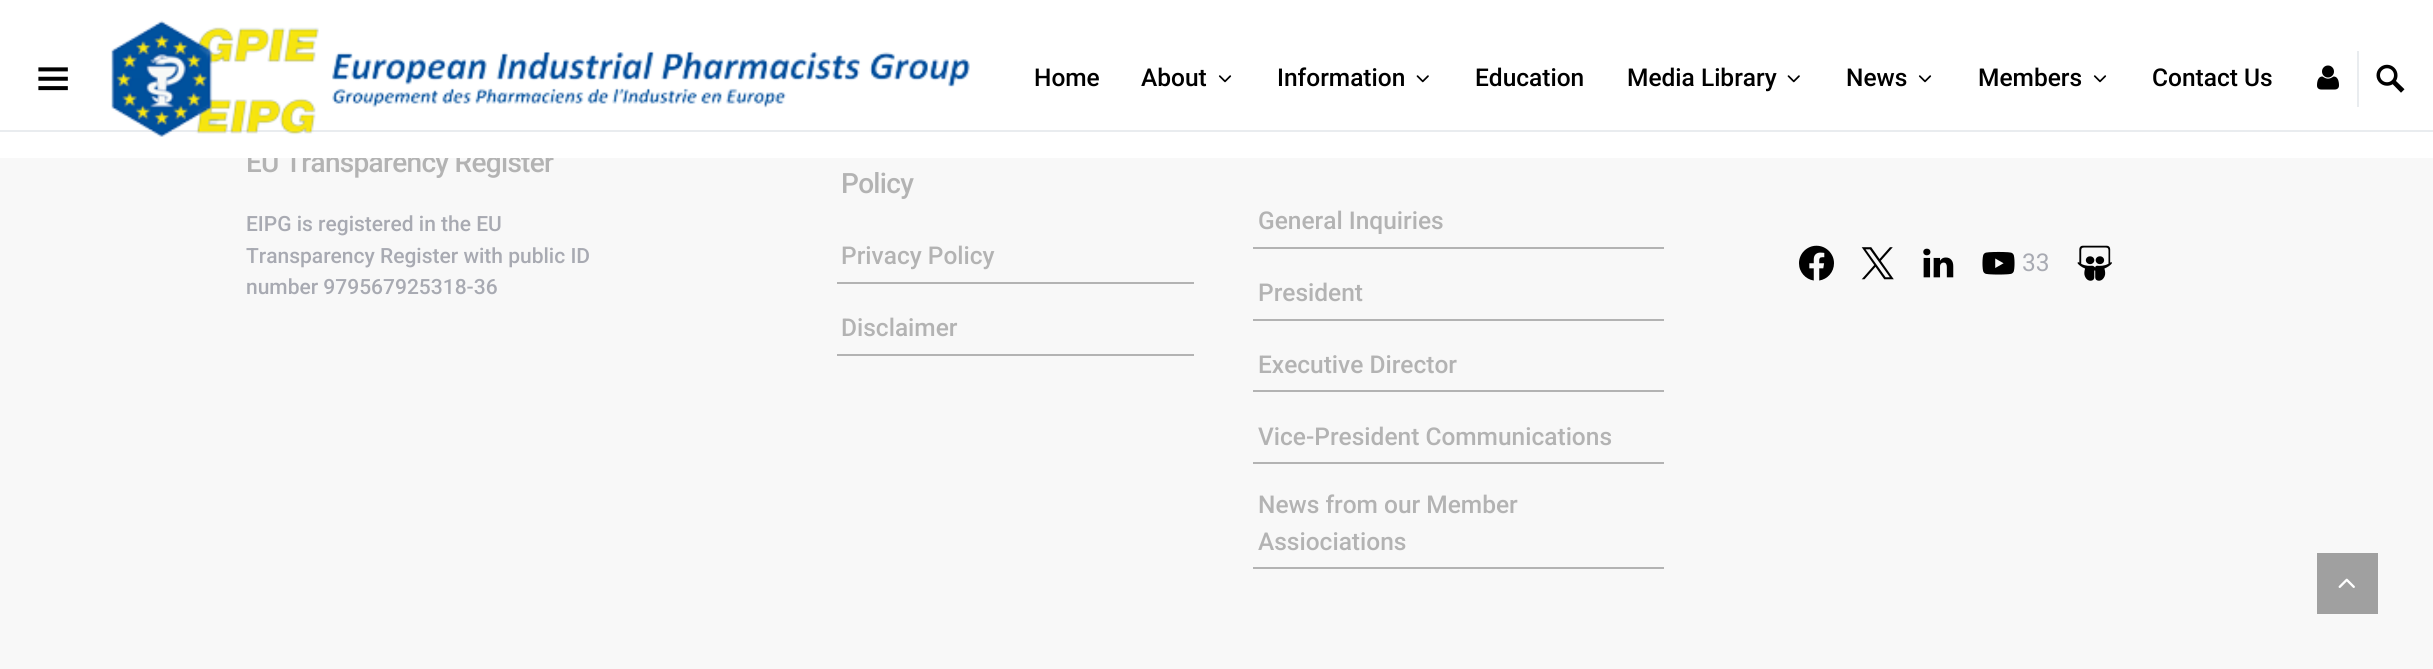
import math
import cairo


def write_spaced(ctx, x, y, s, letter, word):
	ctx.move_to(x, y)
	for ch in s:
		ctx.show_text(ch)
		ctx.rel_move_to(letter + word * (ch == ' '), 0)

def paste(ctx, path, x, y, w, h):
	ctx.save()
	ctx.set_source_surface(cairo.ImageSurface.create_from_png(path), x, y)
	ctx.rectangle(x, y, w, h)
	ctx.fill()
	ctx.restore()

def draw(ctx):
	ctx.set_source_rgb(0.969, 0.969, 0.969)
	ctx.paint()
	ctx.select_font_face('Roboto Medium')
	ctx.set_font_size(28)
	ctx.set_source_rgb(0.702, 0.702, 0.702)
	write_spaced(ctx, 246, 172, 'EU Transparency Register', -0.7, 0)
	ctx.set_source_rgb(1, 1, 1)
	ctx.rectangle(0, 0, 2433, 158)
	ctx.fill()
	ctx.set_source_rgb(0.914, 0.925, 0.937)
	ctx.rectangle(0, 130, 2433, 2)
	ctx.fill()
	paste(ctx, 'media/1.png', 38, 67, 30, 24)
	paste(ctx, 'media/2.png', 111, 20, 859, 117)
	ctx.set_font_size(24.5)
	ctx.set_source_rgb(0, 0, 0)
	ctx.move_to(1034, 86)
	ctx.show_text('Home')
	ctx.move_to(1141, 86)
	ctx.show_text('About')
	paste(ctx, 'media/3.png', 1218, 75, 14, 8)
	ctx.move_to(1277, 86)
	ctx.show_text('Information')
	paste(ctx, 'media/4.png', 1416, 75, 13, 8)
	ctx.move_to(1475, 86)
	ctx.show_text('Education')
	ctx.move_to(1627, 86)
	ctx.show_text('Media Library')
	paste(ctx, 'media/4.png', 1787, 75, 13, 8)
	ctx.move_to(1846, 86)
	ctx.show_text('News')
	paste(ctx, 'media/3.png', 1918, 75, 14, 8)
	ctx.move_to(1978, 86)
	ctx.show_text('Members')
	paste(ctx, 'media/3.png', 2093, 75, 14, 8)
	ctx.move_to(2152, 86)
	ctx.show_text('Contact Us')
	paste(ctx, 'media/5.png', 2317, 65, 22, 25)
	ctx.set_source_rgb(0.914, 0.925, 0.937)
	ctx.rectangle(2357, 51, 2, 56)
	ctx.fill()
	paste(ctx, 'media/6.png', 2376, 64, 29, 29)
	ctx.set_font_size(21)
	ctx.set_source_rgb(0.659, 0.667, 0.698)
	for x, y, s in [
		(246, 231, 'EIPG is registered in the EU'),
		(246, 263, 'Transparency Register with public ID'),
		(246, 294, 'number 979567925318-36'),
	]:
		ctx.move_to(x, y)
		ctx.show_text(s)
	ctx.set_font_size(28)
	ctx.set_source_rgb(0.702, 0.702, 0.702)
	write_spaced(ctx, 841, 193, 'Policy', -0.7, 0)
	ctx.rectangle(837, 282, 357, 2)
	ctx.fill()
	ctx.set_font_size(24.5)
	ctx.move_to(841, 264)
	ctx.show_text('Privacy Policy')
	ctx.rectangle(837, 354, 357, 2)
	ctx.fill()
	ctx.move_to(841, 336)
	ctx.show_text('Disclaimer')
	ctx.rectangle(1253, 247, 411, 2)
	ctx.fill()
	ctx.move_to(1258, 229)
	ctx.show_text('General Inquiries')
	ctx.rectangle(1253, 319, 411, 2)
	ctx.fill()
	ctx.move_to(1258, 301)
	ctx.show_text('President')
	ctx.rectangle(1253, 390, 411, 2)
	ctx.fill()
	ctx.move_to(1258, 373)
	ctx.show_text('Executive Director')
	ctx.rectangle(1253, 462, 411, 2)
	ctx.fill()
	ctx.move_to(1258, 445)
	ctx.show_text('Vice-President Communications')
	ctx.rectangle(1253, 567, 411, 2)
	ctx.fill()
	ctx.move_to(1258, 513)
	ctx.show_text('News from our Member')
	ctx.move_to(1258, 550)
	ctx.show_text('Assiociations')
	paste(ctx, 'media/7.png', 1799, 245, 35, 36)
	paste(ctx, 'media/8.png', 1861, 247, 33, 33)
	paste(ctx, 'media/9.png', 1923, 248, 31, 30)
	paste(ctx, 'media/10.png', 1982, 251, 33, 24)
	ctx.select_font_face('Roboto')
	ctx.set_source_rgb(0.659, 0.667, 0.698)
	ctx.move_to(2022, 271)
	ctx.show_text('33')
	paste(ctx, 'media/11.png', 2077, 245, 35, 36)
	ctx.set_source_rgb(0.627, 0.627, 0.627)
	ctx.rectangle(2317, 553, 61, 61)
	ctx.fill()
	paste(ctx, 'media/12.png', 2338, 578, 17, 10)


surface = cairo.ImageSurface(cairo.FORMAT_RGB24, 2433, 669)
ctx = cairo.Context(surface)
options = cairo.FontOptions()
options.set_hint_metrics(cairo.HINT_METRICS_OFF)
options.set_hint_style(cairo.HINT_STYLE_NONE)
ctx.set_font_options(options)
ctx.set_miter_limit(4)
draw(ctx)
surface.write_to_png('image.png')
